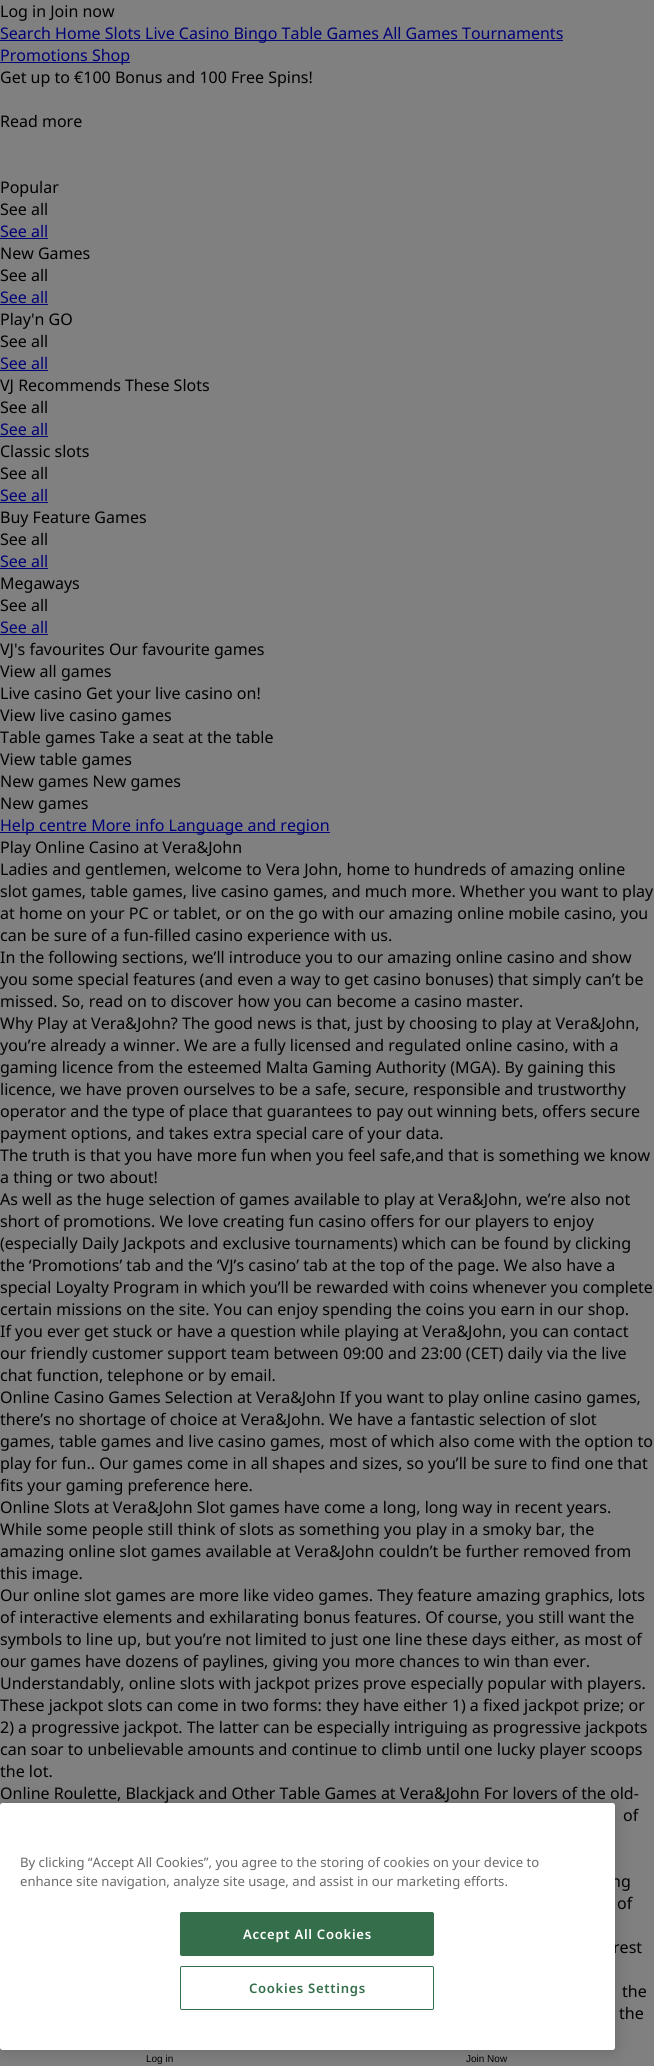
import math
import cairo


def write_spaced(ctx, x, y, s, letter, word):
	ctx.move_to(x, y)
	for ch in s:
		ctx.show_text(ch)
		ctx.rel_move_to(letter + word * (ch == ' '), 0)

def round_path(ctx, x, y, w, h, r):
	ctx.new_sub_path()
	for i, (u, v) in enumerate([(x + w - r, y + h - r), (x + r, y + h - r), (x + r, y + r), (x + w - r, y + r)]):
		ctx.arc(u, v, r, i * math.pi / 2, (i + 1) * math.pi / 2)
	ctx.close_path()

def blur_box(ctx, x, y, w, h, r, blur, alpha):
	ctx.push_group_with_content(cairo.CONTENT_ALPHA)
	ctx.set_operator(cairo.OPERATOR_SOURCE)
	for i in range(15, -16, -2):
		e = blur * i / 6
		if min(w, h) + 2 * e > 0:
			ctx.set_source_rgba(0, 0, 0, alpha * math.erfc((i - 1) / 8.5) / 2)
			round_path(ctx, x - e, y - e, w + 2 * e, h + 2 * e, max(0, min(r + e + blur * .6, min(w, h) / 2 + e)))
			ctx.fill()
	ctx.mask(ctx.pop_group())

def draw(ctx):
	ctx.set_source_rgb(0.502, 0.502, 0.502)
	ctx.paint()
	ctx.select_font_face('Noto Sans')
	ctx.set_font_size(16)
	ctx.set_source_rgb(0, 0, 0)
	ctx.move_to(0, 17)
	ctx.show_text('Log in Join now')
	ctx.set_source_rgb(0, 0, 0.467)
	ctx.rectangle(0, 40, 563, 1)
	ctx.fill()
	ctx.move_to(0, 39)
	ctx.show_text('Search Home Slots Live Casino Bingo Table Games All Games Tournaments')
	ctx.rectangle(0, 62, 130, 1)
	ctx.fill()
	ctx.move_to(0, 61)
	ctx.show_text('Promotions Shop')
	ctx.set_source_rgb(0, 0, 0)
	for x, y, s in [
		(0, 83, 'Get up to €100 Bonus and 100 Free Spins!'),
		(0, 127, 'Read more'),
		(0, 193, 'Popular'),
		(0, 215, 'See all'),
	]:
		ctx.move_to(x, y)
		ctx.show_text(s)
	ctx.set_source_rgb(0, 0, 0.467)
	ctx.move_to(0, 237)
	ctx.show_text('See all')
	ctx.rectangle(0, 238, 48, 1)
	ctx.fill()
	ctx.set_source_rgb(0, 0, 0)
	ctx.move_to(0, 259)
	ctx.show_text('New Games')
	ctx.move_to(0, 281)
	ctx.show_text('See all')
	ctx.set_source_rgb(0, 0, 0.467)
	ctx.move_to(0, 303)
	ctx.show_text('See all')
	ctx.rectangle(0, 304, 48, 1)
	ctx.fill()
	ctx.set_source_rgb(0, 0, 0)
	ctx.move_to(0, 325)
	ctx.show_text('Play\'n GO')
	ctx.move_to(0, 347)
	ctx.show_text('See all')
	ctx.set_source_rgb(0, 0, 0.467)
	ctx.move_to(0, 369)
	ctx.show_text('See all')
	ctx.rectangle(0, 370, 48, 1)
	ctx.fill()
	ctx.set_source_rgb(0, 0, 0)
	ctx.move_to(0, 391)
	ctx.show_text('VJ Recommends These Slots')
	ctx.move_to(0, 413)
	ctx.show_text('See all')
	ctx.set_source_rgb(0, 0, 0.467)
	ctx.move_to(0, 435)
	ctx.show_text('See all')
	ctx.rectangle(0, 436, 48, 1)
	ctx.fill()
	ctx.set_source_rgb(0, 0, 0)
	ctx.move_to(0, 457)
	ctx.show_text('Classic slots')
	ctx.move_to(0, 479)
	ctx.show_text('See all')
	ctx.set_source_rgb(0, 0, 0.467)
	ctx.move_to(0, 501)
	ctx.show_text('See all')
	ctx.rectangle(0, 502, 48, 1)
	ctx.fill()
	ctx.set_source_rgb(0, 0, 0)
	ctx.move_to(0, 523)
	ctx.show_text('Buy Feature Games')
	ctx.move_to(0, 545)
	ctx.show_text('See all')
	ctx.set_source_rgb(0, 0, 0.467)
	ctx.move_to(0, 567)
	ctx.show_text('See all')
	ctx.rectangle(0, 568, 48, 1)
	ctx.fill()
	ctx.set_source_rgb(0, 0, 0)
	ctx.move_to(0, 589)
	ctx.show_text('Megaways')
	ctx.move_to(0, 611)
	ctx.show_text('See all')
	ctx.set_source_rgb(0, 0, 0.467)
	ctx.move_to(0, 633)
	ctx.show_text('See all')
	ctx.rectangle(0, 634, 48, 1)
	ctx.fill()
	ctx.set_source_rgb(0, 0, 0)
	for x, y, s in [
		(0, 655, 'VJ\'s favourites Our favourite games'),
		(0, 677, 'View all games'),
		(0, 699, 'Live casino Get your live casino on!'),
		(0, 721, 'View live casino games'),
		(0, 743, 'Table games Take a seat at the table'),
		(0, 765, 'View table games'),
		(0, 787, 'New games New games'),
		(0, 809, 'New games'),
	]:
		ctx.move_to(x, y)
		ctx.show_text(s)
	ctx.set_source_rgb(0, 0, 0.467)
	ctx.rectangle(0, 832, 330, 1)
	ctx.fill()
	ctx.move_to(0, 831)
	ctx.show_text('Help centre More info Language and region')
	ctx.set_source_rgb(0, 0, 0)
	for x, y, s in [
		(0, 853, 'Play Online Casino at Vera&John'),
		(0, 875, 'Ladies and gentlemen, welcome to Vera John, home to hundreds of amazing online'),
		(0, 897, 'slot games, table games, live casino games, and much more. Whether you want to play'),
		(0, 919, 'at home on your PC or tablet, or on the go with our amazing online mobile casino, you'),
		(0, 941, 'can be sure of a fun-filled casino experience with us.'),
		(0, 963, 'In the following sections, we’ll introduce you to our amazing online casino and show'),
		(0, 985, 'you some special features (and even a way to get casino bonuses) that simply can’t be'),
		(0, 1007, 'missed. So, read on to discover how you can become a casino master.'),
		(0, 1029, 'Why Play at Vera&John? The good news is that, just by choosing to play at Vera&John,'),
		(0, 1051, 'you’re already a winner. We are a fully licensed and regulated online casino, with a'),
		(0, 1073, 'gaming licence from the esteemed Malta Gaming Authority (MGA). By gaining this'),
		(0, 1095, 'licence, we have proven ourselves to be a safe, secure, responsible and trustworthy'),
		(0, 1117, 'operator and the type of place that guarantees to pay out winning bets, offers secure'),
		(0, 1139, 'payment options, and takes extra special care of your data.'),
		(0, 1161, 'The truth is that you have more fun when you feel safe,and that is something we know'),
		(0, 1183, 'a thing or two about!'),
		(0, 1205, 'As well as the huge selection of games available to play at Vera&John, we’re also not'),
		(0, 1227, 'short of promotions. We love creating fun casino offers for our players to enjoy'),
		(0, 1249, '(especially Daily Jackpots and exclusive tournaments) which can be found by clicking'),
		(0, 1271, 'the ‘Promotions’ tab and the ‘VJ’s casino’ tab at the top of the page. We also have a'),
		(0, 1293, 'special Loyalty Program in which you’ll be rewarded with coins whenever you complete'),
		(0, 1315, 'certain missions on the site. You can enjoy spending the coins you earn in our shop.'),
		(0, 1337, 'If you ever get stuck or have a question while playing at Vera&John, you can contact'),
		(0, 1359, 'our friendly customer support team between 09:00 and 23:00 (CET) daily via the live'),
		(0, 1381, 'chat function, telephone or by email.'),
		(0, 1403, 'Online Casino Games Selection at Vera&John If you want to play online casino games,'),
		(0, 1425, 'there’s no shortage of choice at Vera&John. We have a fantastic selection of slot'),
		(0, 1447, 'games, table games and live casino games, most of which also come with the option to'),
		(0, 1469, 'play for fun.. Our games come in all shapes and sizes, so you’ll be sure to find one that'),
		(0, 1491, 'fits your gaming preference here.'),
		(0, 1513, 'Online Slots at Vera&John Slot games have come a long, long way in recent years.'),
		(0, 1535, 'While some people still think of slots as something you play in a smoky bar, the'),
		(0, 1557, 'amazing online slot games available at Vera&John couldn’t be further removed from'),
		(0, 1579, 'this image.'),
		(0, 1601, 'Our online slot games are more like video games. They feature amazing graphics, lots'),
		(0, 1623, 'of interactive elements and exhilarating bonus features. Of course, you still want the'),
		(0, 1645, 'symbols to line up, but you’re not limited to just one line these days either, as most of'),
		(0, 1667, 'our games have dozens of paylines, giving you more chances to win than ever.'),
		(0, 1689, 'Understandably, online slots with jackpot prizes prove especially popular with players.'),
		(0, 1711, 'These jackpot slots can come in two forms: they have either 1) a fixed jackpot prize; or'),
		(0, 1733, '2) a progressive jackpot. The latter can be especially intriguing as progressive jackpots'),
		(0, 1755, 'can soar to unbelievable amounts and continue to climb until one lucky player scoops'),
		(0, 1777, 'the lot.'),
		(0, 1799, 'Online Roulette, Blackjack and Other Table Games at Vera&John For lovers of the old-'),
		(623, 1821, 'of'),
		(611, 1887, 'ng'),
		(617, 1909, 'of'),
		(613, 1953, 'rest'),
		(622, 1997, 'the'),
		(619, 2019, 'the'),
	]:
		ctx.move_to(x, y)
		ctx.show_text(s)
	ctx.set_source_rgb(0, 0, 0)
	blur_box(ctx, 0, 1803, 615, 247, 2.5, 9, 0.2)
	ctx.set_source_rgb(1, 1, 1)
	round_path(ctx, 0, 1803, 615, 247, 2.5)
	ctx.fill()
	ctx.set_font_size(13.1)
	ctx.set_source_rgb(0.412, 0.412, 0.412)
	ctx.move_to(20, 1867)
	ctx.show_text('By clicking “Accept All Cookies”, you agree to the storing of cookies on your device to')
	ctx.move_to(20, 1886)
	ctx.show_text('enhance site navigation, analyze site usage, and assist in our marketing efforts.')
	ctx.set_source_rgb(0.204, 0.431, 0.29)
	round_path(ctx, 180.5, 1912.5, 253, 43, 1.5)
	ctx.fill_preserve()
	ctx.set_line_width(1)
	ctx.stroke()
	ctx.select_font_face('Noto Sans SemiBold')
	ctx.set_source_rgb(1, 1, 1)
	write_spaced(ctx, 243, 1939, 'Accept All Cookies', 0.7, 0)
	round_path(ctx, 180.5, 1966.5, 253, 43, 1.5)
	ctx.set_source_rgb(0.204, 0.431, 0.29)
	ctx.stroke()
	write_spaced(ctx, 249, 1993, 'Cookies Settings', 0.7, 0)
	ctx.select_font_face('Liberation Sans')
	ctx.set_font_size(10)
	ctx.set_source_rgb(0, 0, 0)
	ctx.move_to(146, 2062)
	ctx.show_text('Log in')
	ctx.move_to(466, 2062)
	ctx.show_text('Join Now')


surface = cairo.ImageSurface(cairo.FORMAT_RGB24, 654, 2066)
ctx = cairo.Context(surface)
options = cairo.FontOptions()
options.set_hint_metrics(cairo.HINT_METRICS_OFF)
options.set_hint_style(cairo.HINT_STYLE_NONE)
ctx.set_font_options(options)
ctx.set_miter_limit(4)
draw(ctx)
surface.write_to_png('image.png')
